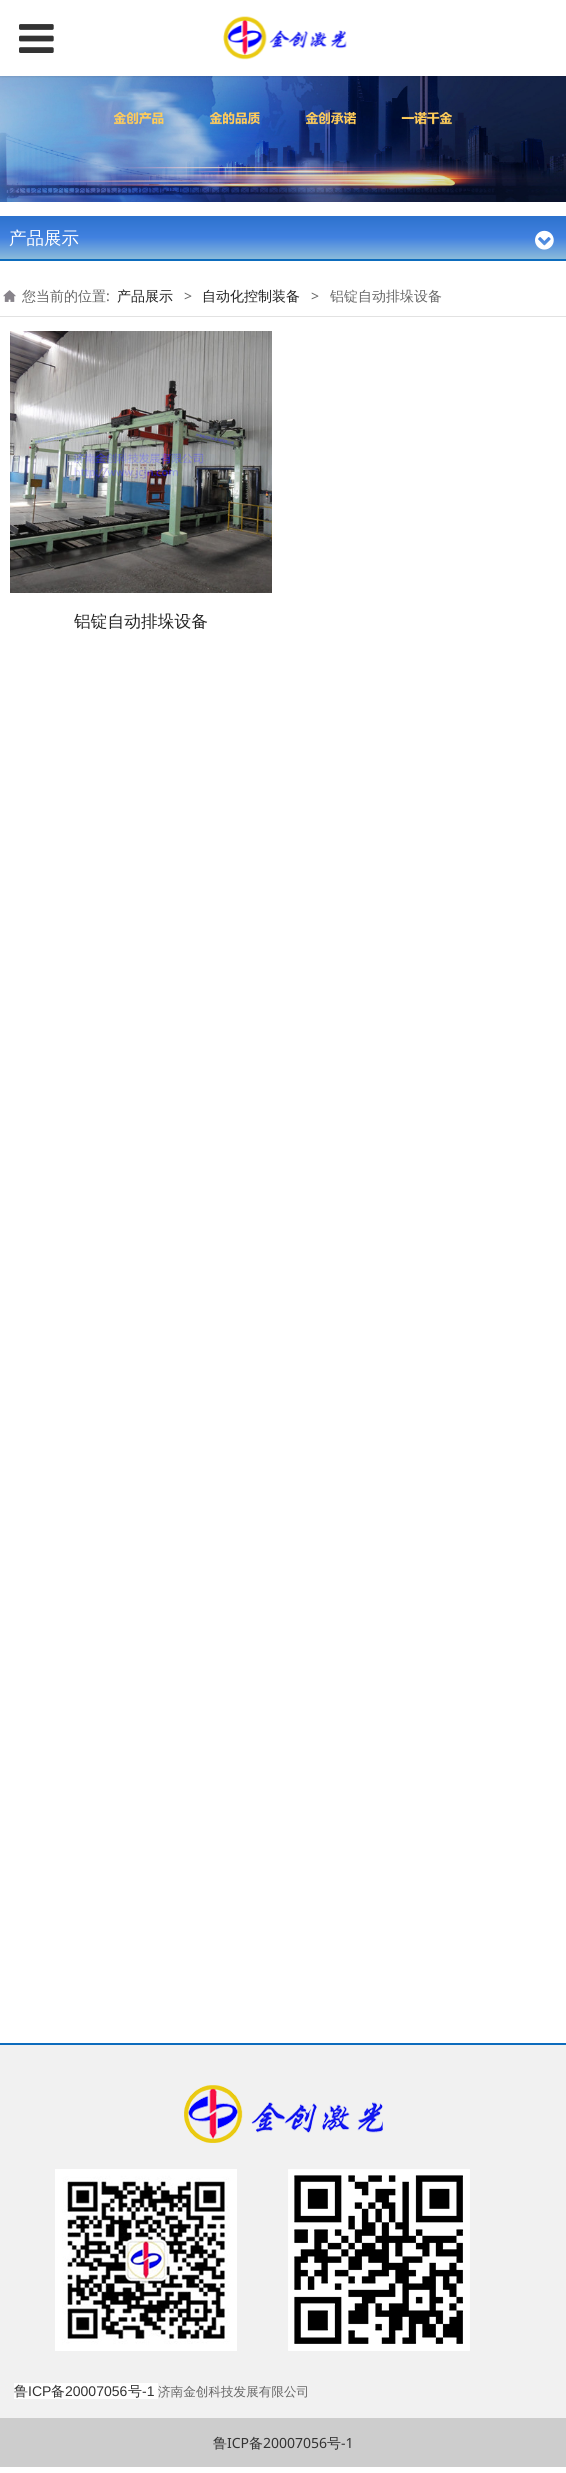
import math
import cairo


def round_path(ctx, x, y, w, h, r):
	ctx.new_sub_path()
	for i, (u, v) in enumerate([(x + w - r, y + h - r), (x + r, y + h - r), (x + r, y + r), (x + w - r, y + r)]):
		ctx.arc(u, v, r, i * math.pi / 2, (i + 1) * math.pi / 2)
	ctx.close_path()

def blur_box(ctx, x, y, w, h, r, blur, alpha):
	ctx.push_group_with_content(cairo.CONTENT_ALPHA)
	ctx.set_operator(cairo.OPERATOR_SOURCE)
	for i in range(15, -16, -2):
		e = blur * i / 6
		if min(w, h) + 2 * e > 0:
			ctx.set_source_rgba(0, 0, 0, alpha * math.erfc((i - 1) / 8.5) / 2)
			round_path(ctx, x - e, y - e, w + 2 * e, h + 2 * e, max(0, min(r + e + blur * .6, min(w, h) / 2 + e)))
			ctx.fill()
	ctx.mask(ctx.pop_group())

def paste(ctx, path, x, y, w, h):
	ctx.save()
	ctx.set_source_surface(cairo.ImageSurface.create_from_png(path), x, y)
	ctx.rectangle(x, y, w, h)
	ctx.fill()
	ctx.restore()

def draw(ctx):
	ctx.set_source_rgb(1, 1, 1)
	ctx.paint()
	paste(ctx, 'media/3.png', 0, 76, 566, 126)
	ctx.save()
	ctx.rectangle(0, 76, 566, 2)
	ctx.clip()
	ctx.set_source_rgb(0, 0, 0)
	blur_box(ctx, 0, 1, 566, 76, 0, 1, 0.1)
	ctx.restore()
	paste(ctx, 'media/1.png', 19, 24, 35, 29)
	paste(ctx, 'media/2.png', 223, 16, 124, 44)
	ctx.set_source_rgb(0.051, 0.424, 0.741)
	ctx.rectangle(0, 259, 566, 2)
	ctx.fill()
	gradient = cairo.LinearGradient(283, 216, 283, 259)
	gradient.add_color_stop_rgba(0, 0.176, 0.447, 0.804, 1)
	gradient.add_color_stop_rgba(0.5, 0.255, 0.506, 0.878, 1)
	gradient.add_color_stop_rgba(1, 0.545, 0.733, 0.855, 1)
	ctx.set_source(gradient)
	ctx.rectangle(0, 216, 566, 43)
	ctx.fill()
	ctx.select_font_face('WenQuanYi Zen Hei Medium')
	ctx.set_font_size(17.5)
	ctx.set_source_rgb(1, 1, 1)
	ctx.move_to(9, 244)
	ctx.show_text('产品展示')
	paste(ctx, 'media/4.png', 535, 230, 19, 20)
	paste(ctx, 'media/5.png', 3, 290, 13, 12)
	ctx.set_source_rgb(0.886, 0.886, 0.886)
	ctx.rectangle(0, 316, 566, 1)
	ctx.fill()
	ctx.set_font_size(14)
	ctx.set_source_rgb(0.4, 0.4, 0.4)
	ctx.move_to(22, 301)
	ctx.show_text('您当前的位置')
	ctx.select_font_face('Noto Sans')
	ctx.move_to(106, 301)
	ctx.show_text(':')
	ctx.select_font_face('WenQuanYi Zen Hei Medium')
	ctx.set_source_rgb(0.133, 0.133, 0.133)
	ctx.move_to(117, 301)
	ctx.show_text('产品展示')
	ctx.select_font_face('Noto Sans')
	ctx.set_source_rgb(0.4, 0.4, 0.4)
	ctx.move_to(184, 301)
	ctx.show_text('>')
	ctx.select_font_face('WenQuanYi Zen Hei Medium')
	ctx.set_source_rgb(0.133, 0.133, 0.133)
	ctx.move_to(202, 301)
	ctx.show_text('自动化控制装备')
	ctx.select_font_face('Noto Sans')
	ctx.set_source_rgb(0.4, 0.4, 0.4)
	ctx.move_to(311, 301)
	ctx.show_text('>')
	ctx.select_font_face('WenQuanYi Zen Hei Medium')
	ctx.move_to(330, 301)
	ctx.show_text('铝锭自动排垛设备')
	paste(ctx, 'media/6.png', 10, 331, 262, 262)
	ctx.set_font_size(16.75)
	ctx.set_source_rgb(0.133, 0.133, 0.133)
	ctx.move_to(74, 627)
	ctx.show_text('铝锭自动排垛设备')
	ctx.set_source_rgb(0.945, 0.945, 0.945)
	ctx.rectangle(0, 2045, 566, 373)
	ctx.fill()
	ctx.set_source_rgb(0.051, 0.424, 0.741)
	ctx.rectangle(0, 2043, 566, 2)
	ctx.fill()
	paste(ctx, 'media/7.png', 184, 2085, 199, 58)
	paste(ctx, 'media/8.png', 55, 2169, 182, 182)
	paste(ctx, 'media/9.png', 288, 2169, 182, 182)
	ctx.set_source_rgb(1, 1, 1)
	ctx.rectangle(14, 2383, 144, 16)
	ctx.fill()
	ctx.set_font_size(14)
	ctx.set_source_rgb(0.2, 0.2, 0.2)
	ctx.move_to(14, 2396)
	ctx.show_text('鲁')
	ctx.select_font_face('Liberation Sans')
	ctx.move_to(28, 2396)
	ctx.show_text('ICP')
	ctx.select_font_face('WenQuanYi Zen Hei Medium')
	ctx.move_to(51, 2396)
	ctx.show_text('备')
	ctx.select_font_face('Liberation Sans')
	ctx.move_to(65, 2396)
	ctx.show_text('20007056')
	ctx.select_font_face('WenQuanYi Zen Hei Medium')
	ctx.move_to(128, 2396)
	ctx.show_text('号')
	ctx.select_font_face('Liberation Sans')
	ctx.move_to(142, 2396)
	ctx.show_text('-1')
	ctx.select_font_face('WenQuanYi Zen Hei Medium')
	ctx.set_font_size(12.6)
	ctx.set_source_rgb(0.4, 0.4, 0.4)
	ctx.move_to(158, 2396)
	ctx.show_text('济南金创科技发展有限公司')
	ctx.set_source_rgb(0.804, 0.804, 0.804)
	ctx.rectangle(0, 2418, 566, 49)
	ctx.fill()
	ctx.set_font_size(14)
	ctx.set_source_rgb(0.2, 0.2, 0.2)
	ctx.move_to(213, 2448)
	ctx.show_text('鲁')
	ctx.select_font_face('Noto Sans')
	ctx.move_to(227, 2448)
	ctx.show_text('ICP')
	ctx.select_font_face('WenQuanYi Zen Hei Medium')
	ctx.move_to(249, 2448)
	ctx.show_text('备')
	ctx.select_font_face('Noto Sans')
	ctx.move_to(263, 2448)
	ctx.show_text('20007056')
	ctx.select_font_face('WenQuanYi Zen Hei Medium')
	ctx.move_to(327, 2448)
	ctx.show_text('号')
	ctx.select_font_face('Noto Sans')
	ctx.move_to(341, 2448)
	ctx.show_text('-1')


surface = cairo.ImageSurface(cairo.FORMAT_RGB24, 566, 2473)
ctx = cairo.Context(surface)
options = cairo.FontOptions()
options.set_hint_metrics(cairo.HINT_METRICS_OFF)
options.set_hint_style(cairo.HINT_STYLE_NONE)
ctx.set_font_options(options)
ctx.set_miter_limit(4)
draw(ctx)
surface.write_to_png('image.png')
